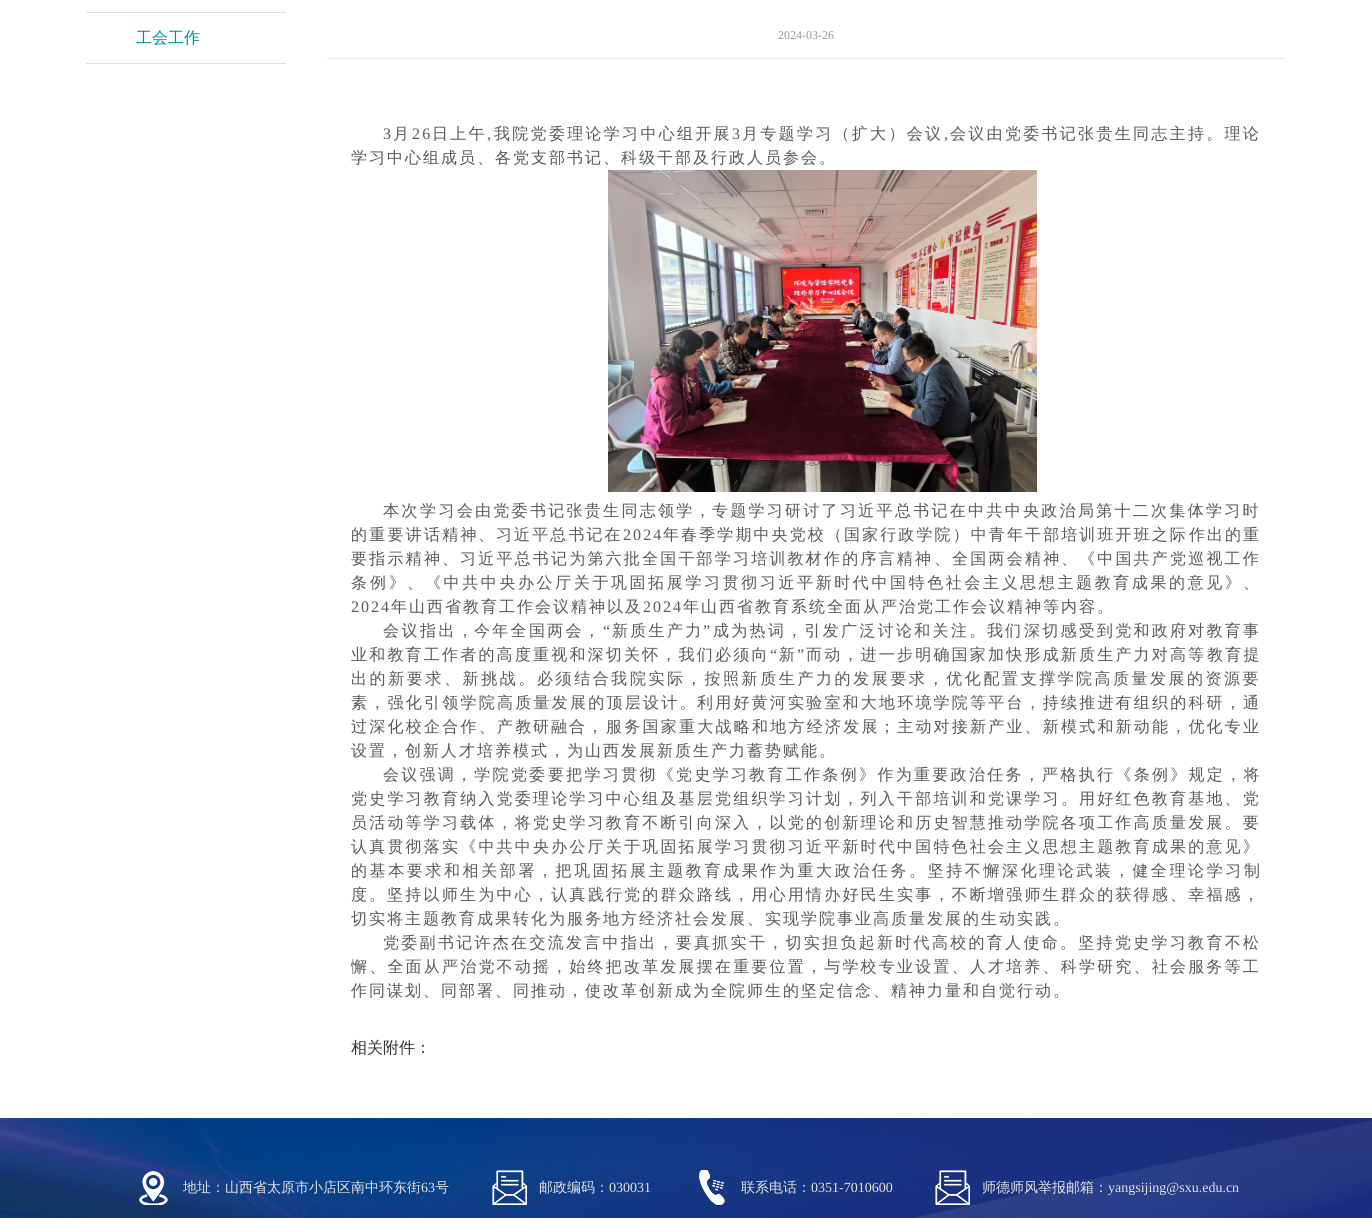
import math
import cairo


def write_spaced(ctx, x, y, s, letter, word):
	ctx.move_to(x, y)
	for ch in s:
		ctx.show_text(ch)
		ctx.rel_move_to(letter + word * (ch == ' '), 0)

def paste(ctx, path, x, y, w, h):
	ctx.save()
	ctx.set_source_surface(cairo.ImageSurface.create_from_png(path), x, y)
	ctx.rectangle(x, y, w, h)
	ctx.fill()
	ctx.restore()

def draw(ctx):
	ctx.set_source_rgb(1, 1, 1)
	ctx.paint()
	ctx.set_source_rgb(0.875, 0.875, 0.875)
	ctx.rectangle(86, 12, 200, 1)
	ctx.fill()
	ctx.rectangle(86, 63, 200, 1)
	ctx.fill()
	ctx.select_font_face('WenQuanYi Zen Hei Medium')
	ctx.set_font_size(16)
	ctx.set_source_rgb(0, 0.553, 0.569)
	ctx.move_to(136, 43)
	ctx.show_text('工会工作')
	ctx.new_path()
	ctx.move_to(326, 58.5)
	ctx.line_to(1286, 58.5)
	ctx.set_source_rgb(0.831, 0.831, 0.831)
	ctx.set_line_width(1)
	ctx.set_dash([1, 1])
	ctx.stroke()
	ctx.select_font_face('Liberation Serif')
	ctx.set_font_size(12)
	ctx.set_source_rgb(0.596, 0.596, 0.596)
	ctx.move_to(778, 39)
	ctx.show_text('2024-03-26')
	ctx.set_font_size(16)
	ctx.set_source_rgb(0.349, 0.349, 0.349)
	write_spaced(ctx, 383, 139, '3', 2.3, 0)
	ctx.select_font_face('WenQuanYi Zen Hei Medium')
	write_spaced(ctx, 393, 139, '月', 2.3, 0)
	ctx.select_font_face('Liberation Serif')
	write_spaced(ctx, 412, 139, '26', 2.3, 0)
	ctx.select_font_face('WenQuanYi Zen Hei Medium')
	write_spaced(ctx, 432, 139, '日上午', 2.3, 0)
	ctx.select_font_face('Liberation Serif')
	write_spaced(ctx, 487, 139, ',', 2.3, 0)
	ctx.select_font_face('WenQuanYi Zen Hei Medium')
	write_spaced(ctx, 494, 139, '我院党委理论学习中心组开展', 2.3, 0)
	ctx.select_font_face('Liberation Serif')
	write_spaced(ctx, 732, 139, '3', 2.3, 0)
	ctx.select_font_face('WenQuanYi Zen Hei Medium')
	write_spaced(ctx, 742, 139, '月专题学习（扩大）会议', 2.3, 0)
	ctx.select_font_face('Liberation Serif')
	write_spaced(ctx, 944, 139, ',', 2.3, 0)
	ctx.select_font_face('WenQuanYi Zen Hei Medium')
	write_spaced(ctx, 950, 139, '会议由党委书记张贵生同志主持。理论', 2.3, 0)
	write_spaced(ctx, 351, 163, '学习中心组成员、各党支部书记、科级干部及行政人员参会。', 2, 0)
	paste(ctx, 'media/1.png', 608, 170, 429, 322)
	write_spaced(ctx, 383, 516, '本次学习会', 2.5, 0)
	write_spaced(ctx, 475, 516, '由党委书记张贵生同志领学，', 2.3, 0)
	write_spaced(ctx, 712, 516, '专题学习研讨了', 2.25, 0)
	write_spaced(ctx, 840, 516, '习近平总书记在中共中央政治局第十二次集体学习时', 2.3, 0)
	write_spaced(ctx, 351, 540, '的重要讲话精神', 2.25, 0)
	write_spaced(ctx, 478, 540, '、', 2, 0)
	write_spaced(ctx, 496, 540, '习近平总书记在', 2.1, 0)
	ctx.select_font_face('Liberation Serif')
	write_spaced(ctx, 623, 540, '2024', 2.1, 0)
	ctx.select_font_face('WenQuanYi Zen Hei Medium')
	write_spaced(ctx, 663, 540, '年春季学期中央党校（国家行政学院）中青年干部培训班开班之际', 2.1, 0)
	write_spaced(ctx, 1189, 540, '作出的重', 2, 0)
	write_spaced(ctx, 351, 564, '要指示精神', 2.25, 0)
	write_spaced(ctx, 442, 564, '、', 2, 0)
	write_spaced(ctx, 460, 564, '习近平总书记为第六批全国干部学习培训教材作的序言精神', 2.2, 0)
	write_spaced(ctx, 934, 564, '、', 2, 0)
	write_spaced(ctx, 952, 564, '全国两会精神', 2.25, 0)
	write_spaced(ctx, 1061, 564, '、', 2, 0)
	write_spaced(ctx, 1079, 564, '《中国共产党巡视工作', 2.2, 0)
	write_spaced(ctx, 351, 588, '条例》', 3, 0)
	write_spaced(ctx, 407, 588, '、', 2, 0)
	write_spaced(ctx, 425, 588, '《中共中央办公厅关于巩固拓展学习贯彻习近平新时代中国特色社会主义思想主题教育成果的意见》', 2.6, 0)
	write_spaced(ctx, 1243, 588, '、', 2, 0)
	ctx.select_font_face('Liberation Serif')
	write_spaced(ctx, 351, 612, '2024', 2, 0)
	ctx.select_font_face('WenQuanYi Zen Hei Medium')
	write_spaced(ctx, 391, 612, '年山西省教育工作会议精神以及', 2, 0)
	ctx.select_font_face('Liberation Serif')
	write_spaced(ctx, 643, 612, '2024', 2, 0)
	ctx.select_font_face('WenQuanYi Zen Hei Medium')
	write_spaced(ctx, 683, 612, '年山西省教育系统全面从严治党工作会议精神等内容。', 2, 0)
	write_spaced(ctx, 383, 636, '会议指出，', 2.5, 0)
	write_spaced(ctx, 474, 636, '今年全国两会，', 2.3, 0)
	ctx.select_font_face('Liberation Serif')
	write_spaced(ctx, 603, 636, '“', 2.3, 0)
	ctx.select_font_face('WenQuanYi Zen Hei Medium')
	write_spaced(ctx, 612, 636, '新质生产力', 2.3, 0)
	ctx.select_font_face('Liberation Serif')
	write_spaced(ctx, 703, 636, '”', 2.3, 0)
	ctx.select_font_face('WenQuanYi Zen Hei Medium')
	write_spaced(ctx, 713, 636, '成为热词，引发广泛讨论和关注。', 2.3, 0)
	write_spaced(ctx, 987, 636, '我们', 2, 0)
	write_spaced(ctx, 1024, 636, '深切感受到党和政府对教育事', 2.25, 0)
	write_spaced(ctx, 351, 660, '业和教育工作者的高度重视和深切关怀，我们', 2.2, 0)
	write_spaced(ctx, 715, 660, '必须向', 2.2, 0)
	ctx.select_font_face('Liberation Serif')
	write_spaced(ctx, 770, 660, '“', 2.2, 0)
	ctx.select_font_face('WenQuanYi Zen Hei Medium')
	write_spaced(ctx, 779, 660, '新', 2.2, 0)
	ctx.select_font_face('Liberation Serif')
	write_spaced(ctx, 797, 660, '”', 2.2, 0)
	ctx.select_font_face('WenQuanYi Zen Hei Medium')
	write_spaced(ctx, 806, 660, '而动，进一步明确国家加快形成新质生产力对', 2.2, 0)
	write_spaced(ctx, 1170, 660, '高等', 2, 0)
	write_spaced(ctx, 1207, 660, '教育提', 2.2, 0)
	write_spaced(ctx, 351, 684, '出的新要求、新挑战。必须结合', 2.6, 0)
	write_spaced(ctx, 611, 684, '我', 2, 0)
	write_spaced(ctx, 630, 684, '院实际，按照新质生产力的发展要求，优化配置支撑学', 2.6, 0)
	write_spaced(ctx, 1076, 684, '院高质量发展的资源要', 2.5, 0)
	write_spaced(ctx, 351, 708, '素，强化引领学院高质量发展的顶层设计。', 2.25, 0)
	write_spaced(ctx, 697, 708, '利用好黄河实验室和大地环境学院等平台，持续推进有组织的科研，', 2.2, 0)
	write_spaced(ctx, 1243, 708, '通', 2, 0)
	write_spaced(ctx, 351, 732, '过深化校企合作、产教', 2.25, 0)
	write_spaced(ctx, 533, 732, '研', 2, 0)
	write_spaced(ctx, 551, 732, '融合，', 2, 0)
	write_spaced(ctx, 606, 732, '服务国家重大战略和地方经济发展', 2.25, 0)
	write_spaced(ctx, 879, 732, '；主动对接新产业、新模式和新动能，优化专业', 2.2, 0)
	write_spaced(ctx, 351, 756, '设置，创新人才培养模式，为山西发展新质生产力蓄势赋能。', 2, 0)
	write_spaced(ctx, 383, 780, '会议强调，学院', 2.25, 0)
	write_spaced(ctx, 511, 780, '党委', 2, 0)
	write_spaced(ctx, 548, 780, '要把学习贯彻《党史学习教育工作条例》作为重要政治任务，严格执行《条例》规定，将', 2.3, 0)
	write_spaced(ctx, 351, 804, '党史学习教育纳入党委理论学习中心组及基层党组织学习计划，列入干部培训和党课学习', 2.2, 0)
	write_spaced(ctx, 1061, 804, '。', 2, 0)
	for x, y, s in [
		(1079, 804, '用好红色教育基地、党'),
		(351, 828, '员活动等学习载体，将党史学习教育不断引向深入，以党的创新理论和历史智慧推动学院各项工作高质量发展。要'),
		(351, 852, '认真贯彻落实《中共中央办公厅关于巩固拓展学习贯彻习近平新时代中国特色社会主义思想主题教育成果的意见》'),
	]:
		write_spaced(ctx, x, y, s, 2.2, 0)
	write_spaced(ctx, 351, 876, '的基本要求和相关部署，把巩固拓展主题教育成果作为重大政治任务。坚持不懈深化理论武装，健全理论学习制', 2.6, 0)
	write_spaced(ctx, 351, 900, '度。', 2, 0)
	write_spaced(ctx, 387, 900, '坚持以师生为中心，认真', 2.25, 0)
	write_spaced(ctx, 588, 900, '践行', 2, 0)
	write_spaced(ctx, 624, 900, '党的群众路线，用心用情办好民生实事，不断增强师生群众的获得感、幸福感', 2.2, 0)
	write_spaced(ctx, 1243, 900, '，', 2, 0)
	write_spaced(ctx, 351, 924, '切实将主题教育成果转化为服务地方经济社会发展、实现学院事业高质量发展的生动实践。', 2, 0)
	write_spaced(ctx, 383, 948, '党委副书记许杰在交流发言中指出，要', 2.3, 0)
	write_spaced(ctx, 694, 948, '真抓实干，切实担负起新时代高校的育人使命。坚持党史学习教育不松', 2.3, 0)
	write_spaced(ctx, 351, 972, '懈、全面从严治党不动摇，始终把改革发展摆在重要位置，与学校专业设置、人才培养、科学研究、社会服务等工', 2.2, 0)
	write_spaced(ctx, 351, 996, '作同谋划、同部署、同推动，使改革创新成为全院师生的坚定信念、精神力量和自觉行动。', 2, 0)
	ctx.set_source_rgb(0.2, 0.2, 0.2)
	ctx.move_to(351, 1053)
	ctx.show_text('相关附件：')
	paste(ctx, 'media/2.png', 0, 1118, 1372, 100)
	paste(ctx, 'media/3.png', 139, 1171, 29, 34)
	ctx.set_font_size(14)
	ctx.set_source_rgb(0.89, 0.89, 0.89)
	ctx.move_to(183, 1192)
	ctx.show_text('地址：山西省太原市小店区南中环东街')
	ctx.select_font_face('Liberation Serif')
	ctx.move_to(421, 1192)
	ctx.show_text('63')
	ctx.select_font_face('WenQuanYi Zen Hei Medium')
	ctx.move_to(435, 1192)
	ctx.show_text('号')
	paste(ctx, 'media/4.png', 492, 1170, 35, 35)
	ctx.move_to(539, 1192)
	ctx.show_text('邮政编码：')
	ctx.select_font_face('Liberation Serif')
	ctx.move_to(609, 1192)
	ctx.show_text('030031')
	paste(ctx, 'media/5.png', 698, 1170, 27, 35)
	ctx.select_font_face('WenQuanYi Zen Hei Medium')
	ctx.move_to(741, 1192)
	ctx.show_text('联系电话：')
	ctx.select_font_face('Liberation Serif')
	ctx.move_to(811, 1192)
	ctx.show_text('0351-7010600')
	paste(ctx, 'media/6.png', 935, 1170, 35, 35)
	ctx.select_font_face('WenQuanYi Zen Hei Medium')
	ctx.move_to(982, 1192)
	ctx.show_text('师德师风举报邮箱：')
	ctx.select_font_face('Liberation Serif')
	ctx.move_to(1108, 1192)
	ctx.show_text('yangsijing@sxu.edu.cn')


surface = cairo.ImageSurface(cairo.FORMAT_RGB24, 1372, 1218)
ctx = cairo.Context(surface)
options = cairo.FontOptions()
options.set_hint_metrics(cairo.HINT_METRICS_OFF)
options.set_hint_style(cairo.HINT_STYLE_NONE)
ctx.set_font_options(options)
ctx.set_miter_limit(4)
draw(ctx)
surface.write_to_png('image.png')
